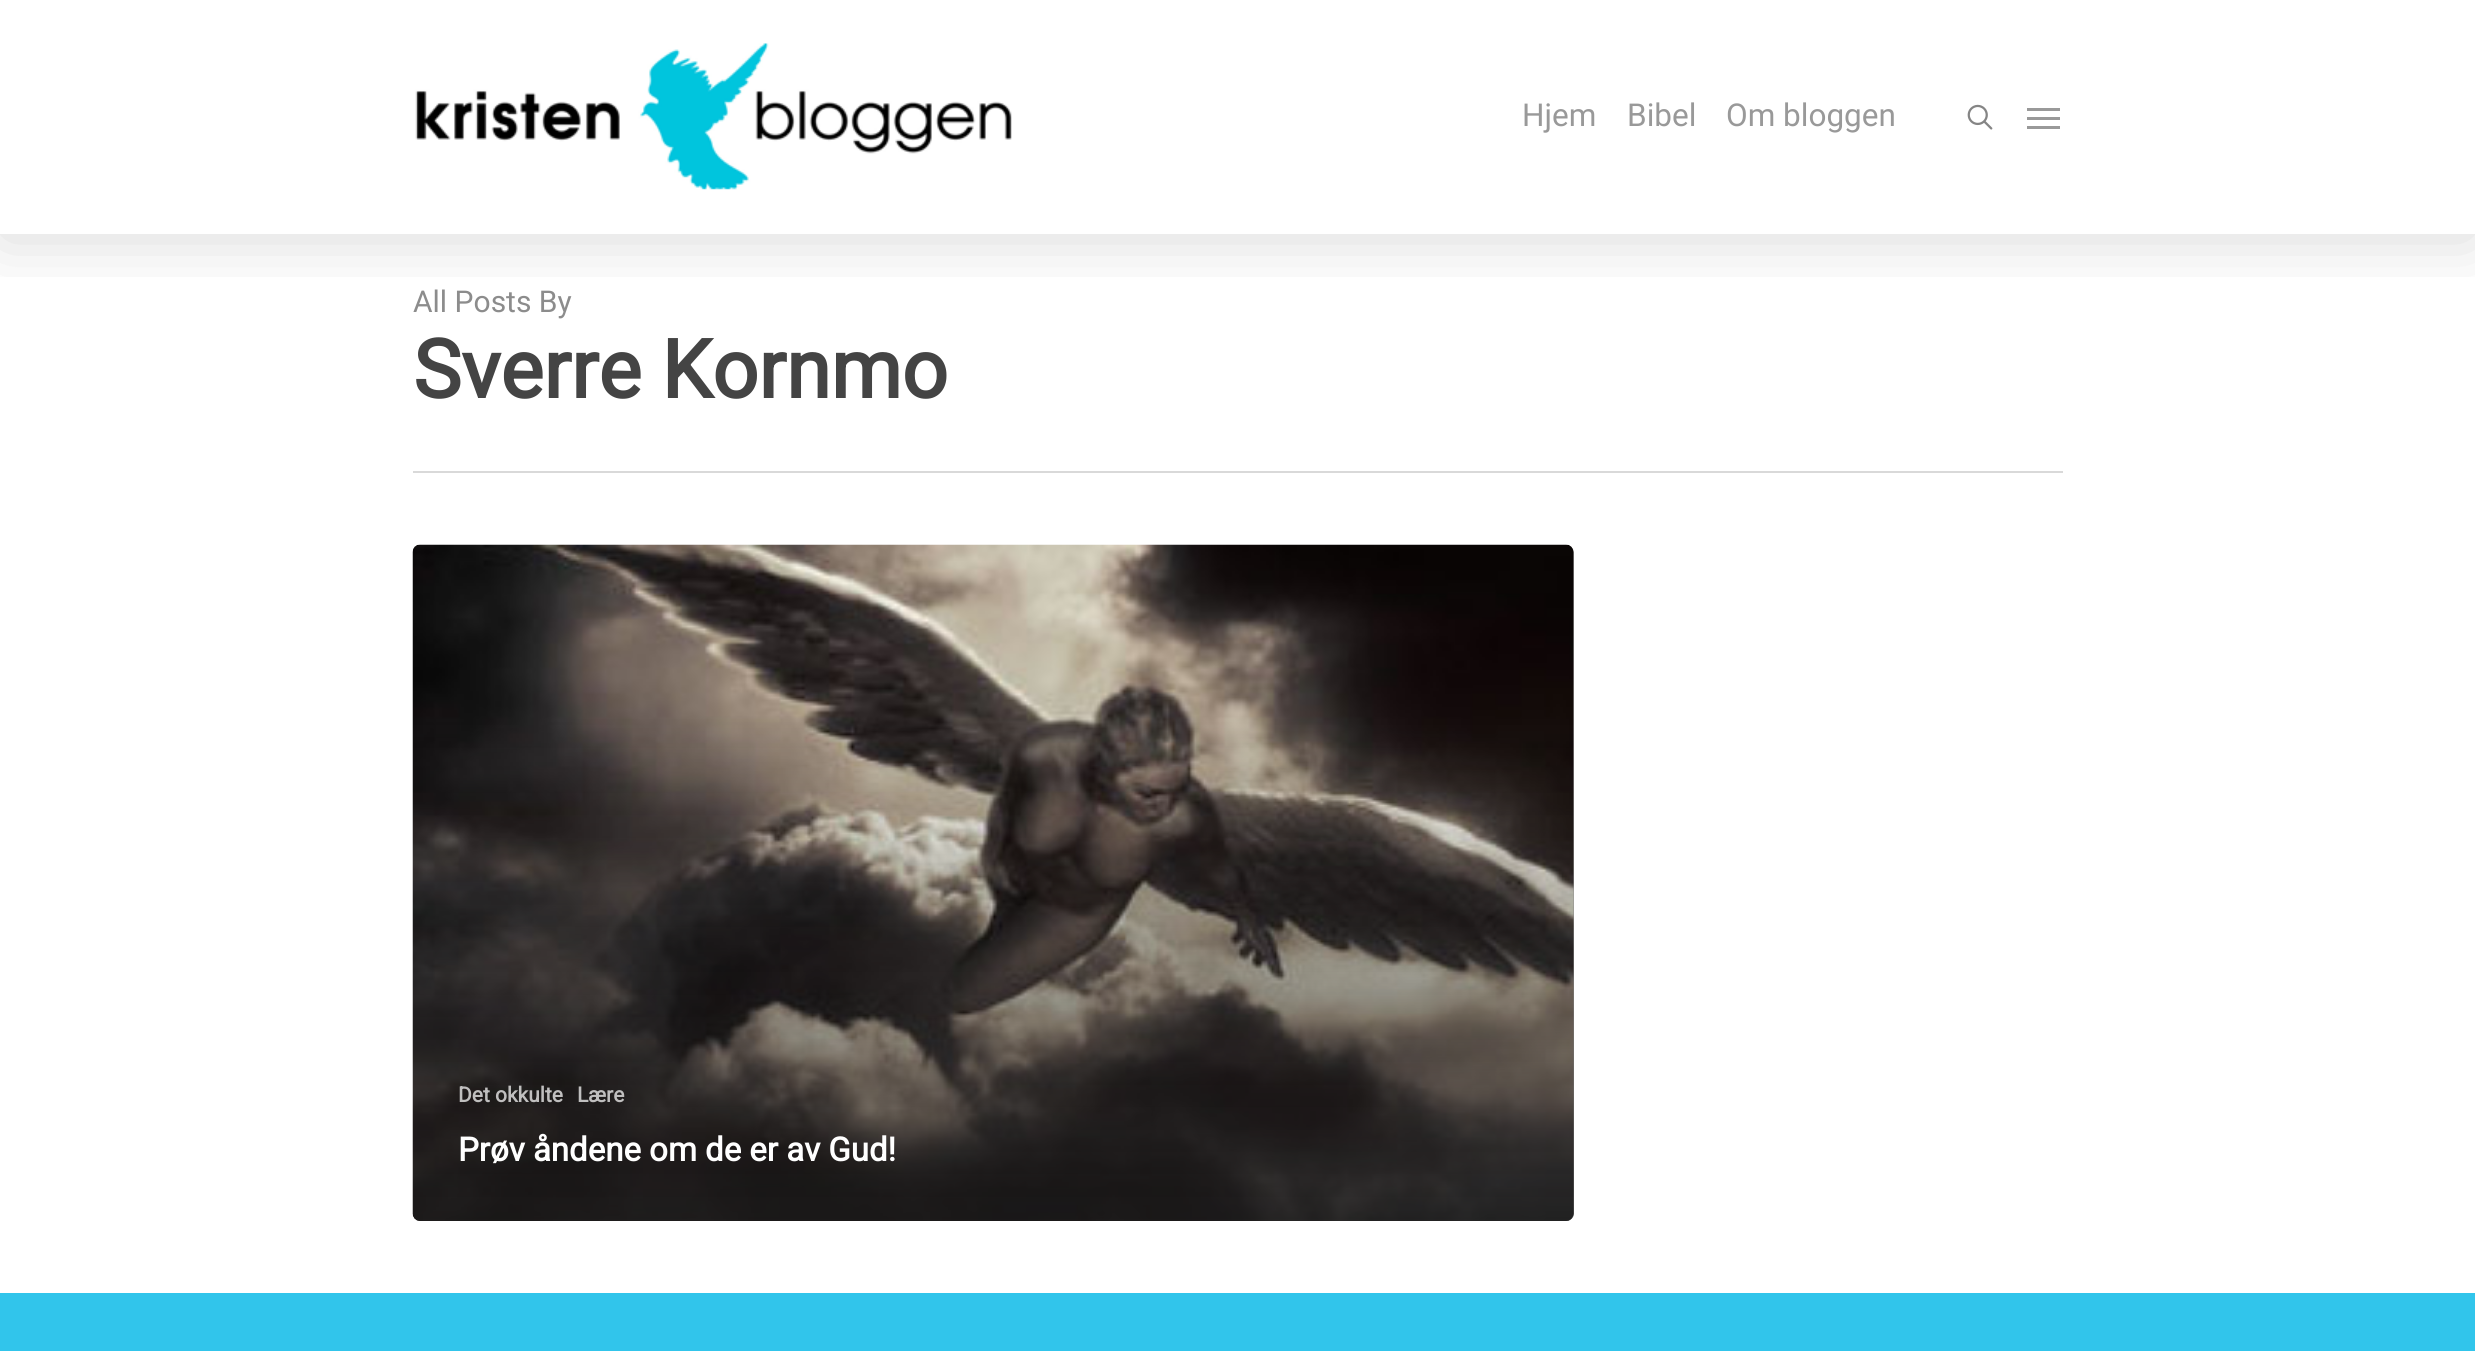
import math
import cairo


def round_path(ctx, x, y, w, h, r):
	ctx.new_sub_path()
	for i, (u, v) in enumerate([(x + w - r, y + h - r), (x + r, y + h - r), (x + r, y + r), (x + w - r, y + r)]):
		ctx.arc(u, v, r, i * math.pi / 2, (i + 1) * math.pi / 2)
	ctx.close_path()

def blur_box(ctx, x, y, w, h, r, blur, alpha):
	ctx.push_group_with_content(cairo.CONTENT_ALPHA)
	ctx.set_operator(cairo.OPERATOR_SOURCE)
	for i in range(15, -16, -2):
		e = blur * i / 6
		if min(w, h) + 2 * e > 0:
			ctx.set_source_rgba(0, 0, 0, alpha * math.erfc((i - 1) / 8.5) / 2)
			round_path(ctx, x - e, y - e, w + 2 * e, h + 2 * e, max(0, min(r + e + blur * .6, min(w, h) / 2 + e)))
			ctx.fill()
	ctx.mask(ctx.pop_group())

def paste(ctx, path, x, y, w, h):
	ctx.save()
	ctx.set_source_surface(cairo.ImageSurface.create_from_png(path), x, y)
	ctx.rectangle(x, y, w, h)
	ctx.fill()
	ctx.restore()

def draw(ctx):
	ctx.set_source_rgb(1, 1, 1)
	ctx.paint()
	ctx.save()
	ctx.rectangle(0, 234, 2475, 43)
	ctx.clip()
	ctx.set_source_rgb(0, 0, 0)
	blur_box(ctx, 0, 5, 2475, 234, 0, 34, 0.15)
	ctx.restore()
	paste(ctx, 'media/1.png', 415, 43, 597, 147)
	ctx.select_font_face('Roboto')
	ctx.set_font_size(31.5)
	ctx.set_source_rgb(0.6, 0.6, 0.6)
	for x, y, s in [
		(1522, 126, 'Hjem'),
		(1627, 126, 'Bibel'),
		(1726, 126, 'Om bloggen'),
	]:
		ctx.move_to(x, y)
		ctx.show_text(s)
	paste(ctx, 'media/2.png', 1967, 104, 26, 26)
	ctx.rectangle(2027, 108, 33, 3)
	ctx.rectangle(2027, 126, 33, 3)
	ctx.rectangle(2027, 117, 33, 3)
	ctx.fill()
	ctx.set_source_rgb(0.851, 0.851, 0.851)
	ctx.rectangle(413, 471, 1650, 2)
	ctx.fill()
	ctx.set_font_size(30)
	ctx.set_source_rgb(0.549, 0.549, 0.549)
	ctx.move_to(413, 312)
	ctx.show_text('All Posts By')
	ctx.select_font_face('Roboto', cairo.FONT_SLANT_NORMAL, cairo.FONT_WEIGHT_BOLD)
	ctx.set_font_size(81)
	ctx.set_source_rgb(0.267, 0.267, 0.267)
	ctx.move_to(413, 398)
	ctx.show_text('Sverre Kornmo')
	ctx.set_source_rgb(0.702, 0.702, 0.702)
	round_path(ctx, 413, 545, 1161, 676, 8)
	ctx.fill()
	paste(ctx, 'media/3.png', 412, 544, 1162, 677)
	gradient = cairo.LinearGradient(995, 714, 995, 1224)
	gradient.add_color_stop_rgba(0, 0.137, 0.137, 0.137, 0)
	gradient.add_color_stop_rgba(1, 0.137, 0.137, 0.137, 0.65)
	ctx.set_source(gradient)
	ctx.new_path()
	ctx.move_to(413, 714)
	ctx.line_to(1574, 714)
	ctx.line_to(1574, 1213)
	ctx.curve_to(1574, 1217.5, 1570.5, 1221, 1566, 1221)
	ctx.line_to(421, 1221)
	ctx.curve_to(416.5, 1221, 413, 1217.5, 413, 1213)
	ctx.close_path()
	ctx.fill()
	ctx.set_font_size(21)
	ctx.set_source_rgb(0.753, 0.749, 0.749)
	ctx.move_to(458, 1102)
	ctx.show_text('Det okkulte')
	ctx.move_to(577, 1102)
	ctx.show_text('Lære')
	ctx.set_font_size(33)
	ctx.set_source_rgb(1, 1, 1)
	ctx.move_to(458, 1161)
	ctx.show_text('Prøv åndene om de er av Gud!')
	ctx.set_source_rgb(0.192, 0.773, 0.918)
	ctx.rectangle(0, 1293, 2475, 58)
	ctx.fill()


surface = cairo.ImageSurface(cairo.FORMAT_RGB24, 2475, 1351)
ctx = cairo.Context(surface)
options = cairo.FontOptions()
options.set_hint_metrics(cairo.HINT_METRICS_OFF)
options.set_hint_style(cairo.HINT_STYLE_NONE)
ctx.set_font_options(options)
ctx.set_miter_limit(4)
draw(ctx)
surface.write_to_png('image.png')
